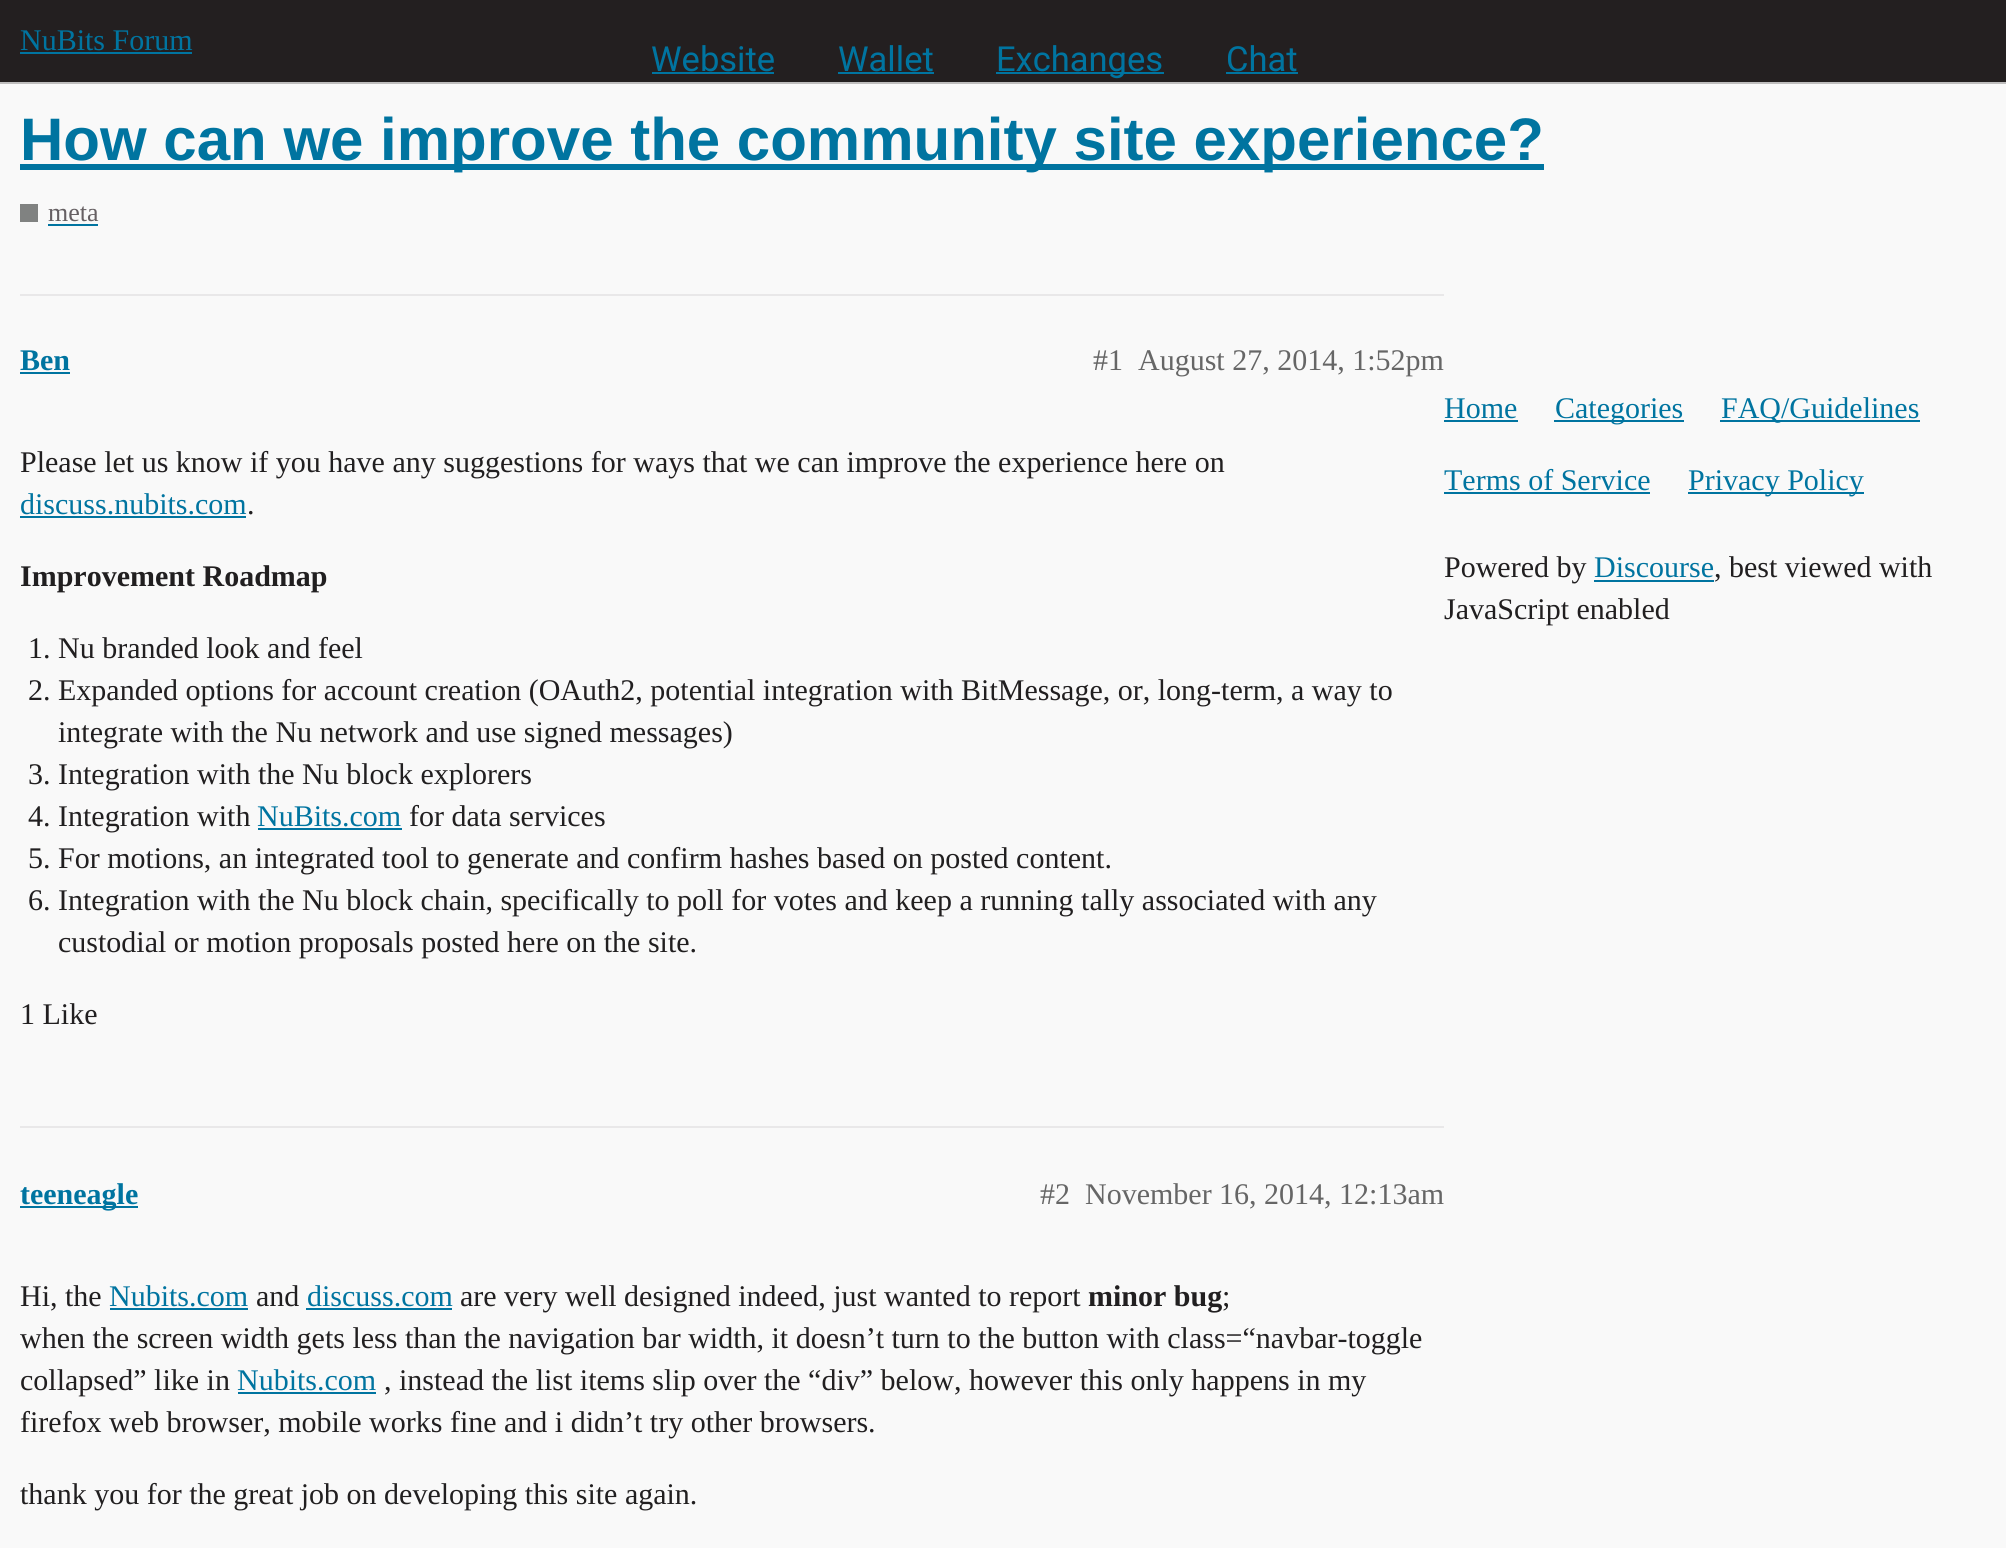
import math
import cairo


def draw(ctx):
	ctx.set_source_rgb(0.976, 0.976, 0.976)
	ctx.paint()
	ctx.set_source_rgb(0.137, 0.122, 0.125)
	ctx.rectangle(0, 0, 2006, 82)
	ctx.fill()
	ctx.set_source_rgb(0.749, 0.745, 0.745)
	ctx.rectangle(0, 82, 2006, 2)
	ctx.fill()
	ctx.select_font_face('Liberation Serif')
	ctx.set_font_size(30)
	ctx.set_source_rgb(0, 0.455, 0.627)
	ctx.move_to(20, 50)
	ctx.show_text('NuBits Forum')
	ctx.rectangle(20, 52, 172, 2)
	ctx.fill()
	ctx.select_font_face('Roboto')
	ctx.set_font_size(34.5)
	ctx.move_to(651, 71)
	ctx.show_text('Website')
	ctx.rectangle(652, 72, 122, 2)
	ctx.fill()
	ctx.move_to(838, 71)
	ctx.show_text('Wallet')
	ctx.rectangle(838, 72, 96, 2)
	ctx.fill()
	ctx.rectangle(996, 72, 168, 2)
	ctx.fill()
	ctx.move_to(996, 71)
	ctx.show_text('Exchanges')
	ctx.move_to(1226, 71)
	ctx.show_text('Chat')
	ctx.rectangle(1226, 72, 72, 2)
	ctx.fill()
	ctx.rectangle(20, 164, 1524, 6)
	ctx.fill()
	ctx.select_font_face('Liberation Sans', cairo.FONT_SLANT_NORMAL, cairo.FONT_WEIGHT_BOLD)
	ctx.set_font_size(60)
	ctx.move_to(20, 160)
	ctx.show_text('How can we improve the community site experience?')
	ctx.set_source_rgb(0.502, 0.51, 0.506)
	ctx.rectangle(20, 204, 18, 18)
	ctx.fill()
	ctx.select_font_face('Liberation Serif')
	ctx.set_font_size(26)
	ctx.set_source_rgb(0.4, 0.376, 0.388)
	ctx.move_to(48, 221)
	ctx.show_text('meta')
	ctx.set_source_rgb(0, 0.455, 0.627)
	ctx.rectangle(48, 224, 50, 2)
	ctx.fill()
	ctx.set_source_rgb(0.914, 0.91, 0.914)
	ctx.rectangle(20, 294, 1424, 2)
	ctx.fill()
	ctx.select_font_face('Liberation Serif', cairo.FONT_SLANT_NORMAL, cairo.FONT_WEIGHT_BOLD)
	ctx.set_font_size(30)
	ctx.set_source_rgb(0, 0.455, 0.627)
	ctx.move_to(20, 370)
	ctx.show_text('Ben')
	ctx.rectangle(20, 372, 50, 2)
	ctx.fill()
	ctx.select_font_face('Liberation Serif')
	ctx.set_source_rgb(0.4, 0.4, 0.4)
	ctx.move_to(1093, 370)
	ctx.show_text('#1')
	ctx.move_to(1138, 370)
	ctx.show_text('August 27, 2014, 1:52pm')
	ctx.set_source_rgb(0.129, 0.122, 0.125)
	ctx.move_to(20, 472)
	ctx.show_text('Please let us know if you have any suggestions for ways that we can improve the experience here on')
	ctx.set_source_rgb(0, 0.455, 0.627)
	ctx.move_to(20, 514)
	ctx.show_text('discuss.nubits.com')
	ctx.rectangle(20, 516, 226, 2)
	ctx.fill()
	ctx.set_source_rgb(0.129, 0.122, 0.125)
	ctx.move_to(247, 514)
	ctx.show_text('.')
	ctx.select_font_face('Liberation Serif', cairo.FONT_SLANT_NORMAL, cairo.FONT_WEIGHT_BOLD)
	ctx.move_to(20, 586)
	ctx.show_text('Improvement Roadmap')
	ctx.select_font_face('Liberation Serif')
	for x, y, s in [
		(28, 658, '1. Nu branded look and feel'),
		(28, 700, '2. Expanded options for account creation (OAuth2, potential integration with BitMessage, or, long-term, a way to'),
		(58, 742, 'integrate with the Nu network and use signed messages)'),
		(28, 784, '3. Integration with the Nu block explorers'),
		(28, 826, '4. Integration with'),
	]:
		ctx.move_to(x, y)
		ctx.show_text(s)
	ctx.set_source_rgb(0, 0.455, 0.627)
	ctx.move_to(257, 826)
	ctx.show_text('NuBits.com')
	ctx.rectangle(258, 828, 144, 2)
	ctx.fill()
	ctx.set_source_rgb(0.129, 0.122, 0.125)
	for x, y, s in [
		(409, 826, 'for data services'),
		(28, 868, '5. For motions, an integrated tool to generate and confirm hashes based on posted content.'),
		(28, 910, '6. Integration with the Nu block chain, specifically to poll for votes and keep a running tally associated with any'),
		(58, 952, 'custodial or motion proposals posted here on the site.'),
		(20, 1024, '1 Like'),
	]:
		ctx.move_to(x, y)
		ctx.show_text(s)
	ctx.set_source_rgb(0.914, 0.91, 0.914)
	ctx.rectangle(20, 1126, 1424, 2)
	ctx.fill()
	ctx.set_source_rgb(0, 0.455, 0.627)
	ctx.rectangle(20, 1206, 118, 2)
	ctx.fill()
	ctx.select_font_face('Liberation Serif', cairo.FONT_SLANT_NORMAL, cairo.FONT_WEIGHT_BOLD)
	ctx.move_to(20, 1204)
	ctx.show_text('teeneagle')
	ctx.select_font_face('Liberation Serif')
	ctx.set_source_rgb(0.4, 0.4, 0.4)
	ctx.move_to(1040, 1204)
	ctx.show_text('#2')
	ctx.move_to(1085, 1204)
	ctx.show_text('November 16, 2014, 12:13am')
	ctx.set_source_rgb(0.129, 0.122, 0.125)
	ctx.move_to(20, 1306)
	ctx.show_text('Hi, the')
	ctx.set_source_rgb(0, 0.455, 0.627)
	ctx.move_to(109, 1306)
	ctx.show_text('Nubits.com')
	ctx.rectangle(110, 1308, 138, 2)
	ctx.fill()
	ctx.set_source_rgb(0.129, 0.122, 0.125)
	ctx.move_to(256, 1306)
	ctx.show_text('and')
	ctx.set_source_rgb(0, 0.455, 0.627)
	ctx.move_to(307, 1306)
	ctx.show_text('discuss.com')
	ctx.rectangle(306, 1308, 146, 2)
	ctx.fill()
	ctx.set_source_rgb(0.129, 0.122, 0.125)
	ctx.move_to(460, 1306)
	ctx.show_text('are very well designed indeed, just wanted to report')
	ctx.select_font_face('Liberation Serif', cairo.FONT_SLANT_NORMAL, cairo.FONT_WEIGHT_BOLD)
	ctx.move_to(1088, 1306)
	ctx.show_text('minor bug')
	ctx.select_font_face('Liberation Serif')
	for x, y, s in [
		(1222, 1306, ';'),
		(20, 1348, 'when the screen width gets less than the navigation bar width, it doesn’t turn to the button with class=“navbar-toggle'),
		(20, 1390, 'collapsed” like in'),
	]:
		ctx.move_to(x, y)
		ctx.show_text(s)
	ctx.set_source_rgb(0, 0.455, 0.627)
	ctx.move_to(237, 1390)
	ctx.show_text('Nubits.com')
	ctx.rectangle(238, 1392, 138, 2)
	ctx.fill()
	ctx.set_source_rgb(0.129, 0.122, 0.125)
	for x, y, s in [
		(384, 1390, ', instead the list items slip over the “div” below, however this only happens in my'),
		(20, 1432, 'firefox web browser, mobile works fine and i didn’t try other browsers.'),
		(20, 1504, 'thank you for the great job on developing this site again.'),
	]:
		ctx.move_to(x, y)
		ctx.show_text(s)
	ctx.set_source_rgb(0, 0.455, 0.627)
	ctx.move_to(1444, 418)
	ctx.show_text('Home')
	ctx.rectangle(1444, 420, 74, 2)
	ctx.fill()
	ctx.rectangle(1554, 420, 130, 2)
	ctx.fill()
	ctx.move_to(1555, 418)
	ctx.show_text('Categories')
	ctx.rectangle(1720, 420, 200, 2)
	ctx.fill()
	ctx.move_to(1721, 418)
	ctx.show_text('FAQ/Guidelines')
	ctx.move_to(1444, 490)
	ctx.show_text('Terms of Service')
	ctx.rectangle(1444, 492, 206, 2)
	ctx.fill()
	ctx.rectangle(1688, 492, 176, 2)
	ctx.fill()
	ctx.move_to(1688, 490)
	ctx.show_text('Privacy Policy')
	ctx.set_source_rgb(0.129, 0.122, 0.125)
	ctx.move_to(1444, 577)
	ctx.show_text('Powered by')
	ctx.set_source_rgb(0, 0.455, 0.627)
	ctx.move_to(1594, 577)
	ctx.show_text('Discourse')
	ctx.rectangle(1594, 580, 120, 2)
	ctx.fill()
	ctx.set_source_rgb(0.129, 0.122, 0.125)
	ctx.move_to(1714, 577)
	ctx.show_text(', best viewed with')
	ctx.move_to(1444, 619)
	ctx.show_text('JavaScript enabled')


surface = cairo.ImageSurface(cairo.FORMAT_RGB24, 2006, 1548)
ctx = cairo.Context(surface)
options = cairo.FontOptions()
options.set_hint_metrics(cairo.HINT_METRICS_OFF)
options.set_hint_style(cairo.HINT_STYLE_NONE)
ctx.set_font_options(options)
ctx.set_miter_limit(4)
draw(ctx)
surface.write_to_png('image.png')
